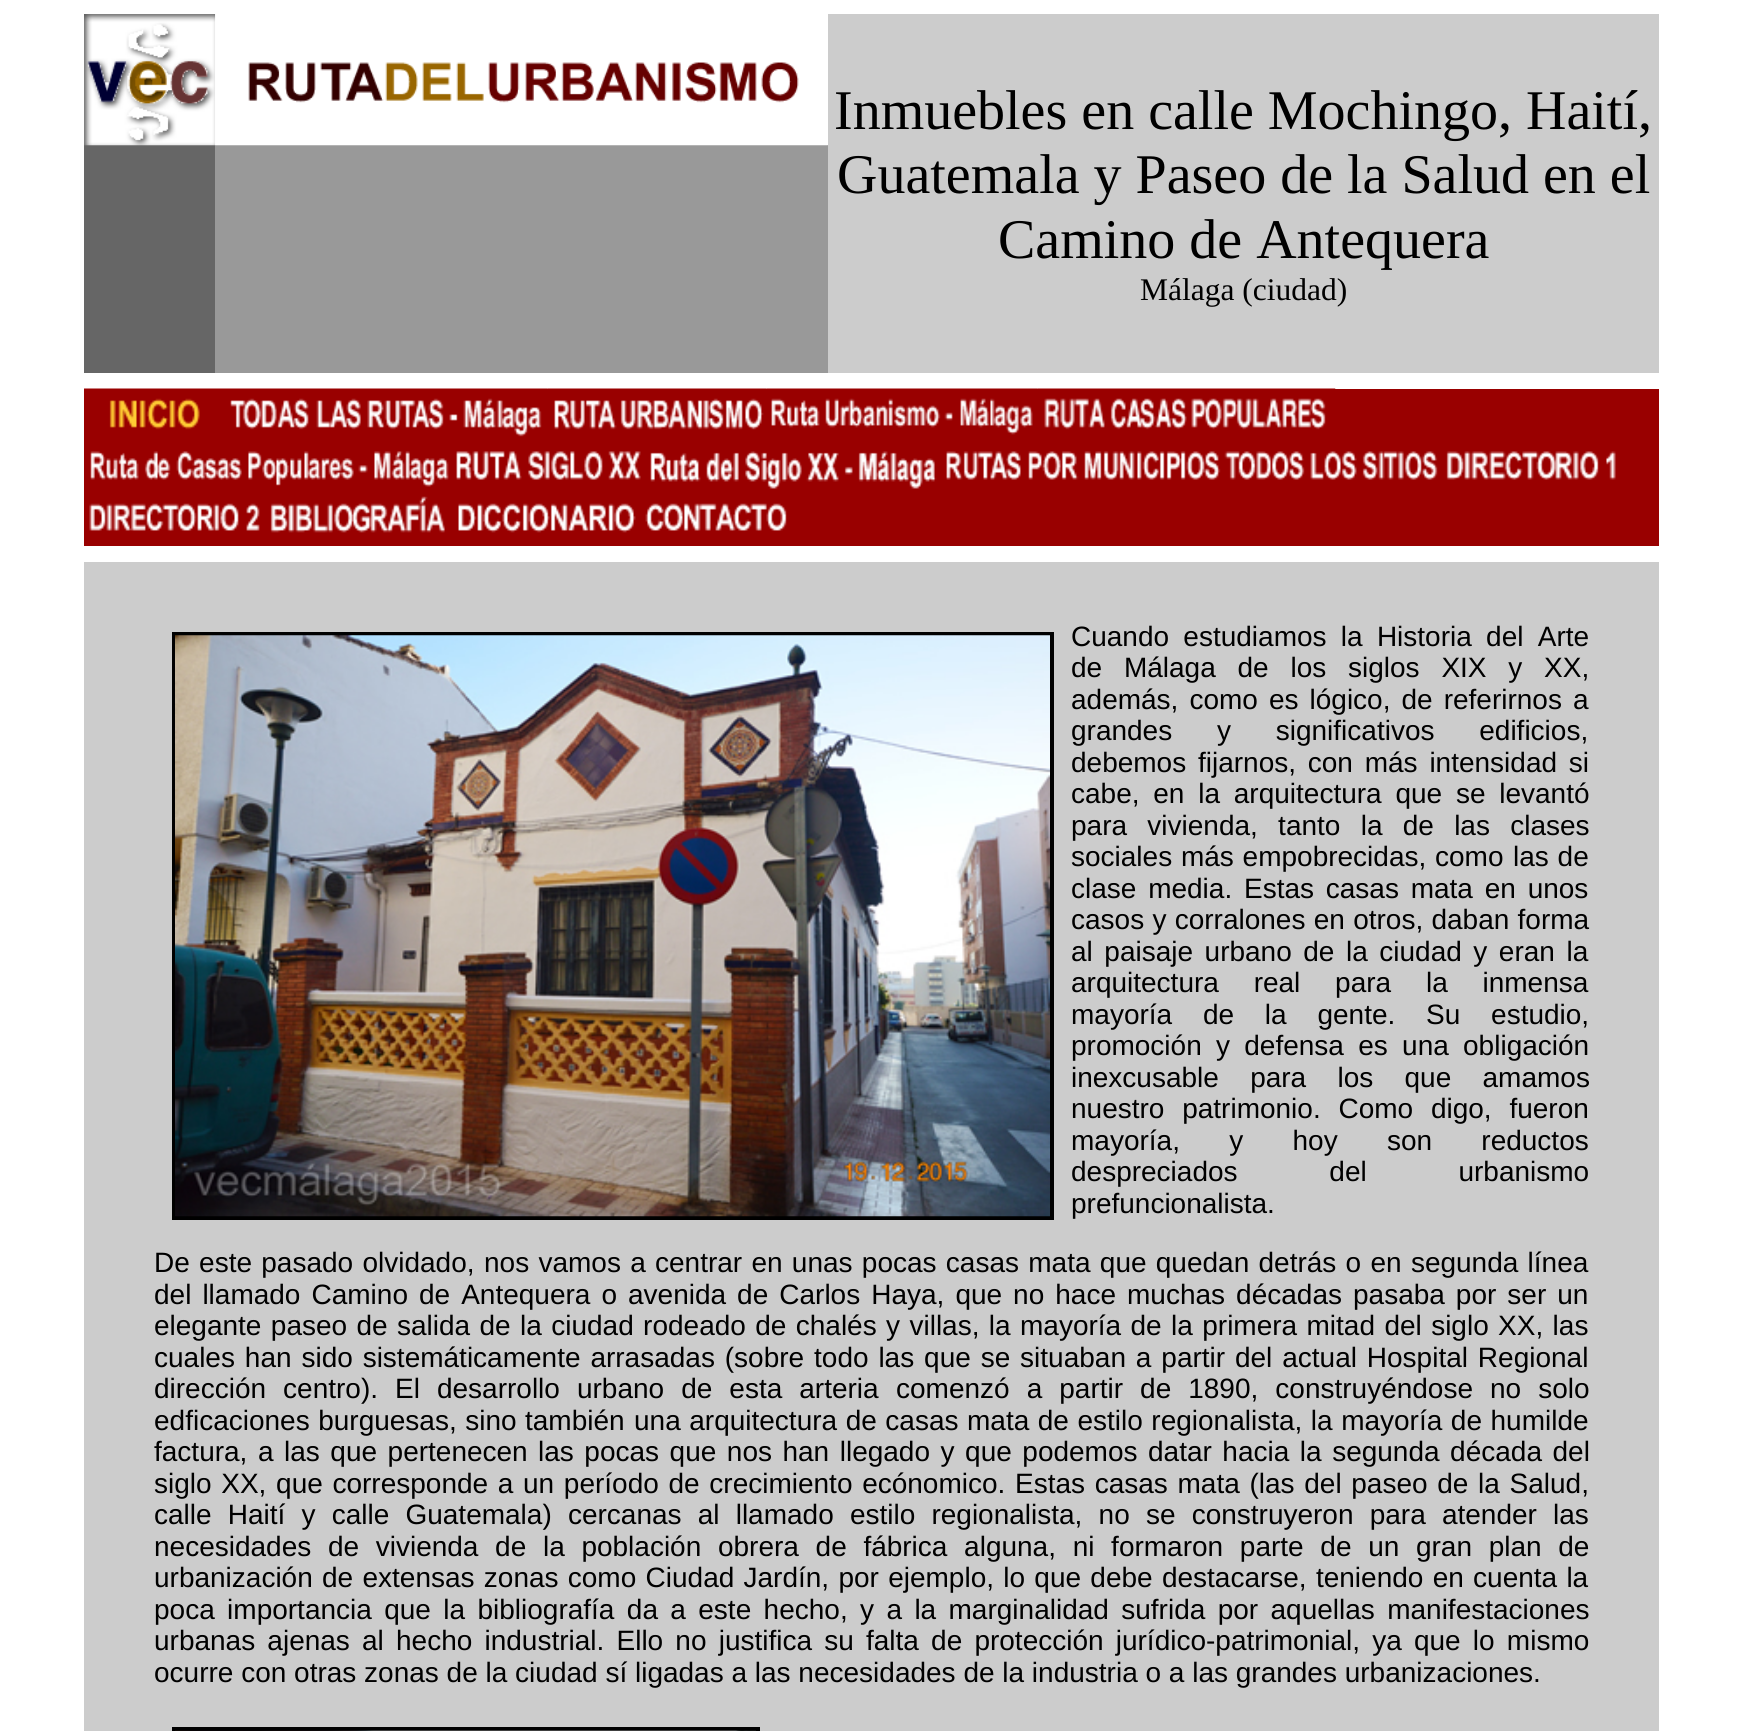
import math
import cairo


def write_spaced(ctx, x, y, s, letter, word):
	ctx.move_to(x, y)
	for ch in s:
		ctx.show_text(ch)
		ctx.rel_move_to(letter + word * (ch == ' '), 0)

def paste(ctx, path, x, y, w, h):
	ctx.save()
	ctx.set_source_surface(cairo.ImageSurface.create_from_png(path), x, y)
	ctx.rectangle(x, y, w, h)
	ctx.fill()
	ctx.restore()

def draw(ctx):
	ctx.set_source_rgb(1, 1, 1)
	ctx.paint()
	ctx.set_source_rgb(0.4, 0.4, 0.4)
	ctx.rectangle(84, 145, 131, 228)
	ctx.fill()
	ctx.set_source_rgb(0.6, 0.6, 0.6)
	ctx.rectangle(215, 145, 613, 228)
	ctx.fill()
	paste(ctx, 'media/1.png', 84, 14, 132, 132)
	paste(ctx, 'media/2.png', 215, 14, 613, 132)
	ctx.set_source_rgb(0.8, 0.8, 0.8)
	ctx.rectangle(828, 14, 831, 359)
	ctx.fill()
	ctx.select_font_face('Liberation Serif')
	ctx.set_font_size(56)
	ctx.set_source_rgb(0, 0, 0)
	for x, y, s in [
		(834, 129, 'Inmuebles en calle Mochingo, Haití,'),
		(837, 193, 'Guatemala y Paseo de la Salud en el'),
		(998, 258, 'Camino de Antequera'),
	]:
		ctx.move_to(x, y)
		ctx.show_text(s)
	ctx.set_font_size(31.5)
	ctx.move_to(1140, 300)
	ctx.show_text('Málaga (ciudad)')
	ctx.set_source_rgb(0.6, 0, 0)
	ctx.rectangle(84, 389, 1575, 157)
	ctx.fill()
	paste(ctx, 'media/3.png', 84, 388, 140, 42)
	paste(ctx, 'media/4.png', 224, 388, 324, 49)
	paste(ctx, 'media/5.png', 547, 388, 220, 42)
	paste(ctx, 'media/6.png', 766, 388, 272, 47)
	paste(ctx, 'media/7.png', 1037, 388, 299, 42)
	paste(ctx, 'media/8.png', 90, 451, 359, 36)
	paste(ctx, 'media/9.png', 456, 451, 185, 29)
	paste(ctx, 'media/10.png', 650, 451, 287, 38)
	paste(ctx, 'media/11.png', 946, 451, 275, 29)
	paste(ctx, 'media/12.png', 1224, 451, 214, 29)
	paste(ctx, 'media/13.png', 1446, 451, 170, 29)
	paste(ctx, 'media/14.png', 89, 503, 171, 28)
	paste(ctx, 'media/15.png', 270, 496, 175, 37)
	paste(ctx, 'media/16.png', 458, 503, 178, 30)
	paste(ctx, 'media/17.png', 645, 503, 142, 28)
	ctx.set_source_rgb(0.8, 0.8, 0.8)
	ctx.rectangle(84, 562, 1575, 1169)
	ctx.fill()
	ctx.rectangle(174, 634, 878, 584)
	ctx.set_source_rgb(0, 0, 0)
	ctx.set_line_width(4)
	ctx.stroke()
	paste(ctx, 'media/18.png', 175, 635, 875, 582)
	ctx.select_font_face('Liberation Sans')
	ctx.set_font_size(28)
	write_spaced(ctx, 1071, 646, 'Cuando estudiamos la Historia del Arte', 0, 6.5)
	write_spaced(ctx, 1071, 677, 'de Málaga de los siglos XIX y XX,', 0, 14)
	write_spaced(ctx, 1071, 709, 'además, como es lógico, de referirnos a', 0, 3.25)
	write_spaced(ctx, 1071, 740, 'grandes y significativos edificios,', 0, 37)
	write_spaced(ctx, 1071, 772, 'debemos fijarnos, con más intensidad si', 0, 4)
	write_spaced(ctx, 1071, 803, 'cabe, en la arquitectura que se levantó', 0, 6)
	write_spaced(ctx, 1071, 835, 'para vivienda, tanto la de las clases', 0, 12.5)
	write_spaced(ctx, 1071, 866, 'sociales más empobrecidas, como', 0, 1)
	write_spaced(ctx, 1513, 866, 'las de', 0, 1)
	write_spaced(ctx, 1071, 898, 'clase media. Estas casas mata en unos', 0, 4)
	write_spaced(ctx, 1071, 929, 'casos y corralones en otros, daban forma', 0, 0.5)
	write_spaced(ctx, 1071, 961, 'al paisaje urbano de la ciudad y eran la', 0, 3.75)
	write_spaced(ctx, 1071, 992, 'arquitectura real para la inmensa', 0, 27)
	write_spaced(ctx, 1071, 1024, 'mayoría de la gente. Su estudio,', 0, 23)
	write_spaced(ctx, 1071, 1055, 'promoción y defensa es una obligación', 0, 6.5)
	write_spaced(ctx, 1071, 1087, 'inexcusable para los que amamos', 0, 23.5)
	write_spaced(ctx, 1071, 1118, 'nuestro patrimonio. Como digo, fueron', 0, 10)
	write_spaced(ctx, 1071, 1150, 'mayoría, y hoy son reductos', 0, 41.5)
	write_spaced(ctx, 1071, 1181, 'despreciados del urbanismo', 0, 84)
	ctx.move_to(1071, 1213)
	ctx.show_text('prefuncionalista.')
	write_spaced(ctx, 154, 1272, 'De este pasado olvidado,', 0, 1.5)
	write_spaced(ctx, 484, 1272, 'nos vamos a centrar en unas pocas casas mata que quedan detrás o en segunda línea', 0, 1.5)
	write_spaced(ctx, 154, 1304, 'del llamado Camino de Antequera o avenida de Carlos Haya, que no hace muchas décadas pasaba por ser un', 0, 3.25)
	write_spaced(ctx, 154, 1335, 'elegante paseo de salida de la ciudad rodeado de chalés y villas, la mayoría de la primera mitad del siglo XX, las', 0, 1.6)
	write_spaced(ctx, 154, 1367, 'cuales han sido sistemáticamente arrasadas (sobre todo las que se situaban a partir del actual Hospital Regional', 0, 2.1)
	write_spaced(ctx, 154, 1398, 'dirección centro). El desarrollo urbano de esta arteria', 0, 9.25)
	write_spaced(ctx, 896, 1398, 'comenzó a partir de 1890, construyéndose no solo', 0, 9.25)
	write_spaced(ctx, 154, 1430, 'edficaciones burguesas, sino', 0, 0.75)
	ctx.move_to(525, 1430)
	ctx.show_text('también')
	write_spaced(ctx, 634, 1430, 'una arquitectura de casas mata de estilo regionalista, la mayoría de humilde', 0, 0.75)
	write_spaced(ctx, 154, 1461, 'factura, a las que pertenecen', 0, 2.75)
	write_spaced(ctx, 538, 1461, 'las pocas que nos han llegado y que podemos datar hacia la segunda década del', 0, 2.75)
	write_spaced(ctx, 154, 1493, 'siglo XX, que corresponde a un período de crecimiento ecónomico. Estas casas mata (las del paseo de la Salud,', 0, 1.9)
	write_spaced(ctx, 154, 1524, 'calle Haití y calle Guatemala) cercanas al llamado estilo regionalista, no se construyeron para atender las', 0, 8.4)
	write_spaced(ctx, 154, 1556, 'necesidades de vivienda de la población obrera de fábrica alguna, ni formaron parte de un gran plan de', 0, 8.9)
	write_spaced(ctx, 154, 1587, 'urbanización de extensas zonas como Ciudad Jardín, por ejemplo, lo que debe destacarse, teniendo en cuenta la', 0, 1.5)
	write_spaced(ctx, 154, 1619, 'poca importancia que la bibliografía da a este hecho, y a la marginalidad sufrida por aquellas manifestaciones', 0, 4.6)
	write_spaced(ctx, 154, 1650, 'urbanas ajenas al hecho industrial. Ello no justifica su falta de protección jurídico-patrimonial, ya que lo mismo', 0, 4.4)
	ctx.move_to(154, 1682)
	ctx.show_text('ocurre con otras zonas de la ciudad sí ligadas a las necesidades de la industria o a las grandes urbanizaciones.')
	ctx.rectangle(174, 1729, 584, 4)
	ctx.stroke()
	paste(ctx, 'media/19.png', 175, 1730, 581, 1)


surface = cairo.ImageSurface(cairo.FORMAT_RGB24, 1742, 1731)
ctx = cairo.Context(surface)
options = cairo.FontOptions()
options.set_hint_metrics(cairo.HINT_METRICS_OFF)
options.set_hint_style(cairo.HINT_STYLE_NONE)
ctx.set_font_options(options)
ctx.set_miter_limit(4)
draw(ctx)
surface.write_to_png('image.png')
